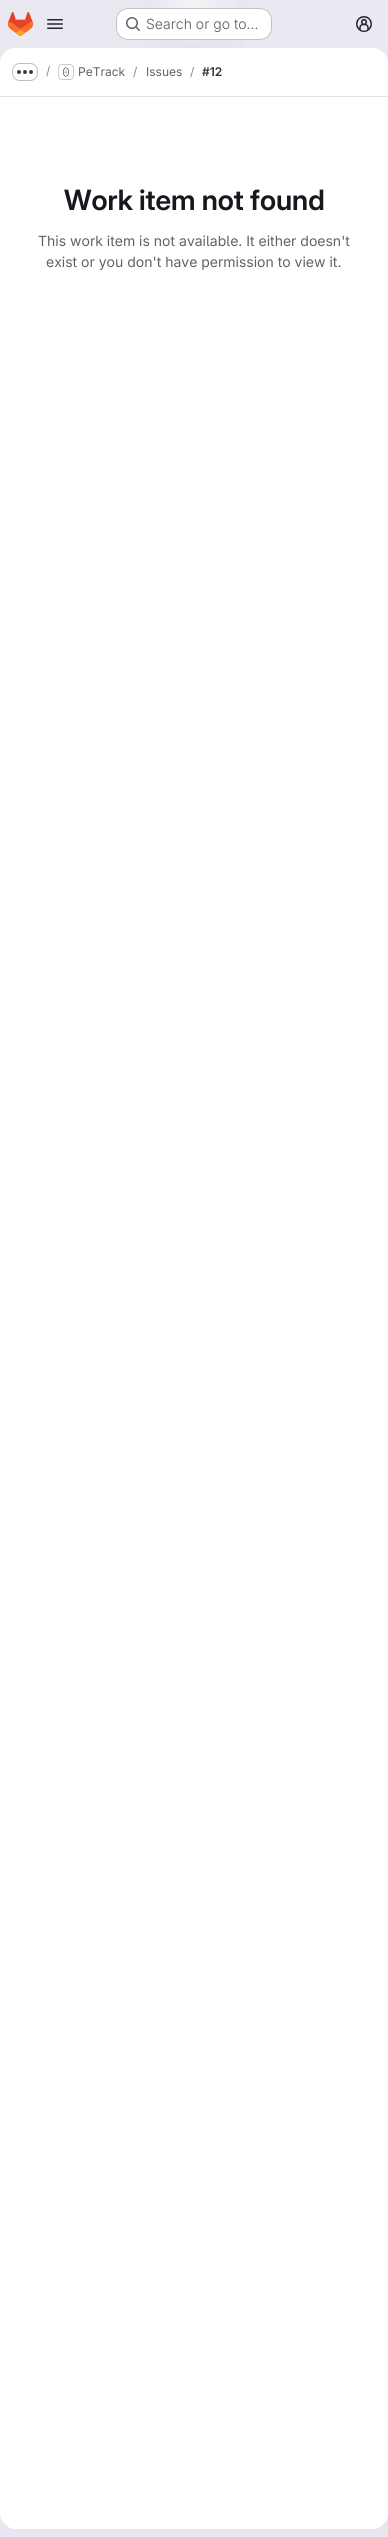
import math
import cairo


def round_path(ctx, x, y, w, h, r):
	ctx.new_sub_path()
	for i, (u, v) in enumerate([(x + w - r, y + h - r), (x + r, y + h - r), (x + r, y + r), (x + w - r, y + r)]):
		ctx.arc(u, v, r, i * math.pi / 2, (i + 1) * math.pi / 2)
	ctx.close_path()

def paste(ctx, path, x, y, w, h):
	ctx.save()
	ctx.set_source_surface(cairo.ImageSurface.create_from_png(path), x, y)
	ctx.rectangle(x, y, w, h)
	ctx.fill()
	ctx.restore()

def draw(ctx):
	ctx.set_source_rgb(1, 1, 1)
	ctx.paint()
	gradient = cairo.LinearGradient(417, 2532, -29, 5.1)
	gradient.add_color_stop_rgba(0, 0.91, 0.902, 0.941, 1)
	gradient.add_color_stop_rgba(0.7, 0.918, 0.914, 0.949, 1)
	ctx.set_source(gradient)
	ctx.rectangle(0, 0, 388, 2537)
	ctx.fill()
	gradient = cairo.RadialGradient(0, 0, 0, 0, 0, 1)
	gradient.set_matrix(cairo.Matrix(1 / 194, 0, 0, 1 / 2537, -1 * 194 / 194, -1 * 0 / 2537))
	gradient.add_color_stop_rgba(0, 0.894, 0.886, 0.929, 1)
	gradient.add_color_stop_rgba(0.36, 0.894, 0.886, 0.929, 0)
	ctx.set_source(gradient)
	ctx.rectangle(143, 0, 102, 48)
	ctx.fill()
	gradient = cairo.RadialGradient(0, 0, 0, 0, 0, 1)
	gradient.set_matrix(cairo.Matrix(1 / 194, 0, 0, 1 / 2537, -1 * 194 / 194, -1 * 0 / 2537))
	gradient.add_color_stop_rgba(0, 0.894, 0.886, 0.925, 1)
	gradient.add_color_stop_rgba(0.26, 0.894, 0.886, 0.925, 0)
	ctx.set_source(gradient)
	ctx.rectangle(181, 0, 26, 44)
	ctx.fill()
	gradient = cairo.RadialGradient(194, 0, 0, 194, 0, 2544)
	gradient.add_color_stop_rgba(0, 1, 1, 1, 0.6)
	gradient.add_color_stop_rgba(0.02, 1, 1, 1, 0)
	ctx.set_source(gradient)
	ctx.rectangle(152, 0, 84, 43)
	ctx.fill()
	paste(ctx, 'media/1.png', 8, 12, 25, 24)
	paste(ctx, 'media/2.png', 47, 19, 16, 10)
	ctx.set_source_rgb(1, 1, 1)
	round_path(ctx, 116, 8, 156, 32, 12)
	ctx.fill()
	round_path(ctx, 116.5, 8.5, 155, 31, 11.5)
	ctx.set_source_rgba(0.02, 0.02, 0.024, 0.24)
	ctx.set_line_width(1)
	ctx.stroke()
	paste(ctx, 'media/3.png', 126, 17, 14, 14)
	ctx.select_font_face('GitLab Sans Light')
	ctx.set_font_size(14)
	ctx.set_source_rgb(0.384, 0.38, 0.408)
	ctx.move_to(146, 29)
	ctx.show_text('Search or go to…')
	paste(ctx, 'media/4.png', 356, 16, 16, 16)
	ctx.set_source_rgb(1, 1, 1)
	round_path(ctx, 0, 48, 388, 2481, 16)
	ctx.fill()
	ctx.new_path()
	ctx.move_to(16, 48)
	ctx.line_to(372, 48)
	ctx.curve_to(381, 48, 388, 55, 388, 64)
	ctx.line_to(388, 97)
	ctx.line_to(0, 97)
	ctx.line_to(0, 64)
	ctx.curve_to(0, 55, 7, 48, 16, 48)
	ctx.close_path()
	ctx.fill()
	ctx.set_source_rgb(0.882, 0.875, 0.925)
	ctx.rectangle(0, 96, 388, 1)
	ctx.fill()
	round_path(ctx, 12.5, 63.5, 25, 17, 7.5)
	ctx.set_source_rgb(0.749, 0.749, 0.765)
	ctx.stroke()
	paste(ctx, 'media/5.png', 17, 70, 16, 4)
	ctx.select_font_face('GitLab Sans')
	ctx.set_font_size(12)
	ctx.set_source_rgb(0.537, 0.533, 0.553)
	ctx.move_to(46, 75)
	ctx.show_text('/')
	round_path(ctx, 58.5, 64.5, 15, 15, 3.5)
	ctx.set_source_rgb(0.863, 0.863, 0.871)
	ctx.stroke()
	paste(ctx, 'media/6.png', 63, 67, 6, 10)
	round_path(ctx, 58.5, 64.5, 15, 15, 3.5)
	ctx.set_source_rgba(0.02, 0.02, 0.024, 0.08)
	ctx.stroke()
	ctx.set_source_rgb(0.384, 0.38, 0.408)
	ctx.move_to(78, 76)
	ctx.show_text('PeTrack')
	ctx.set_source_rgb(0.537, 0.533, 0.553)
	ctx.move_to(133, 76)
	ctx.show_text('/')
	ctx.set_source_rgb(0.384, 0.38, 0.408)
	ctx.move_to(146, 76)
	ctx.show_text('Issues')
	ctx.set_source_rgb(0.537, 0.533, 0.553)
	ctx.move_to(190, 76)
	ctx.show_text('/')
	ctx.select_font_face('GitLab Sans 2 SemiBold')
	ctx.set_source_rgb(0.227, 0.22, 0.247)
	ctx.move_to(202, 76)
	ctx.show_text('#12')
	ctx.select_font_face('GitLab Sans SemiBold')
	ctx.set_font_size(28)
	ctx.set_source_rgb(0.094, 0.09, 0.114)
	ctx.move_to(64, 210)
	ctx.show_text('Work item not found')
	ctx.select_font_face('GitLab Sans')
	ctx.set_font_size(14)
	ctx.set_source_rgb(0.384, 0.38, 0.408)
	ctx.move_to(38, 246)
	ctx.show_text('This work item is not available. It either doesn\'t')
	ctx.move_to(46, 267)
	ctx.show_text('exist or you don\'t have permission to view it.')


surface = cairo.ImageSurface(cairo.FORMAT_RGB24, 388, 2537)
ctx = cairo.Context(surface)
options = cairo.FontOptions()
options.set_hint_metrics(cairo.HINT_METRICS_OFF)
options.set_hint_style(cairo.HINT_STYLE_NONE)
ctx.set_font_options(options)
ctx.set_miter_limit(4)
draw(ctx)
surface.write_to_png('image.png')
